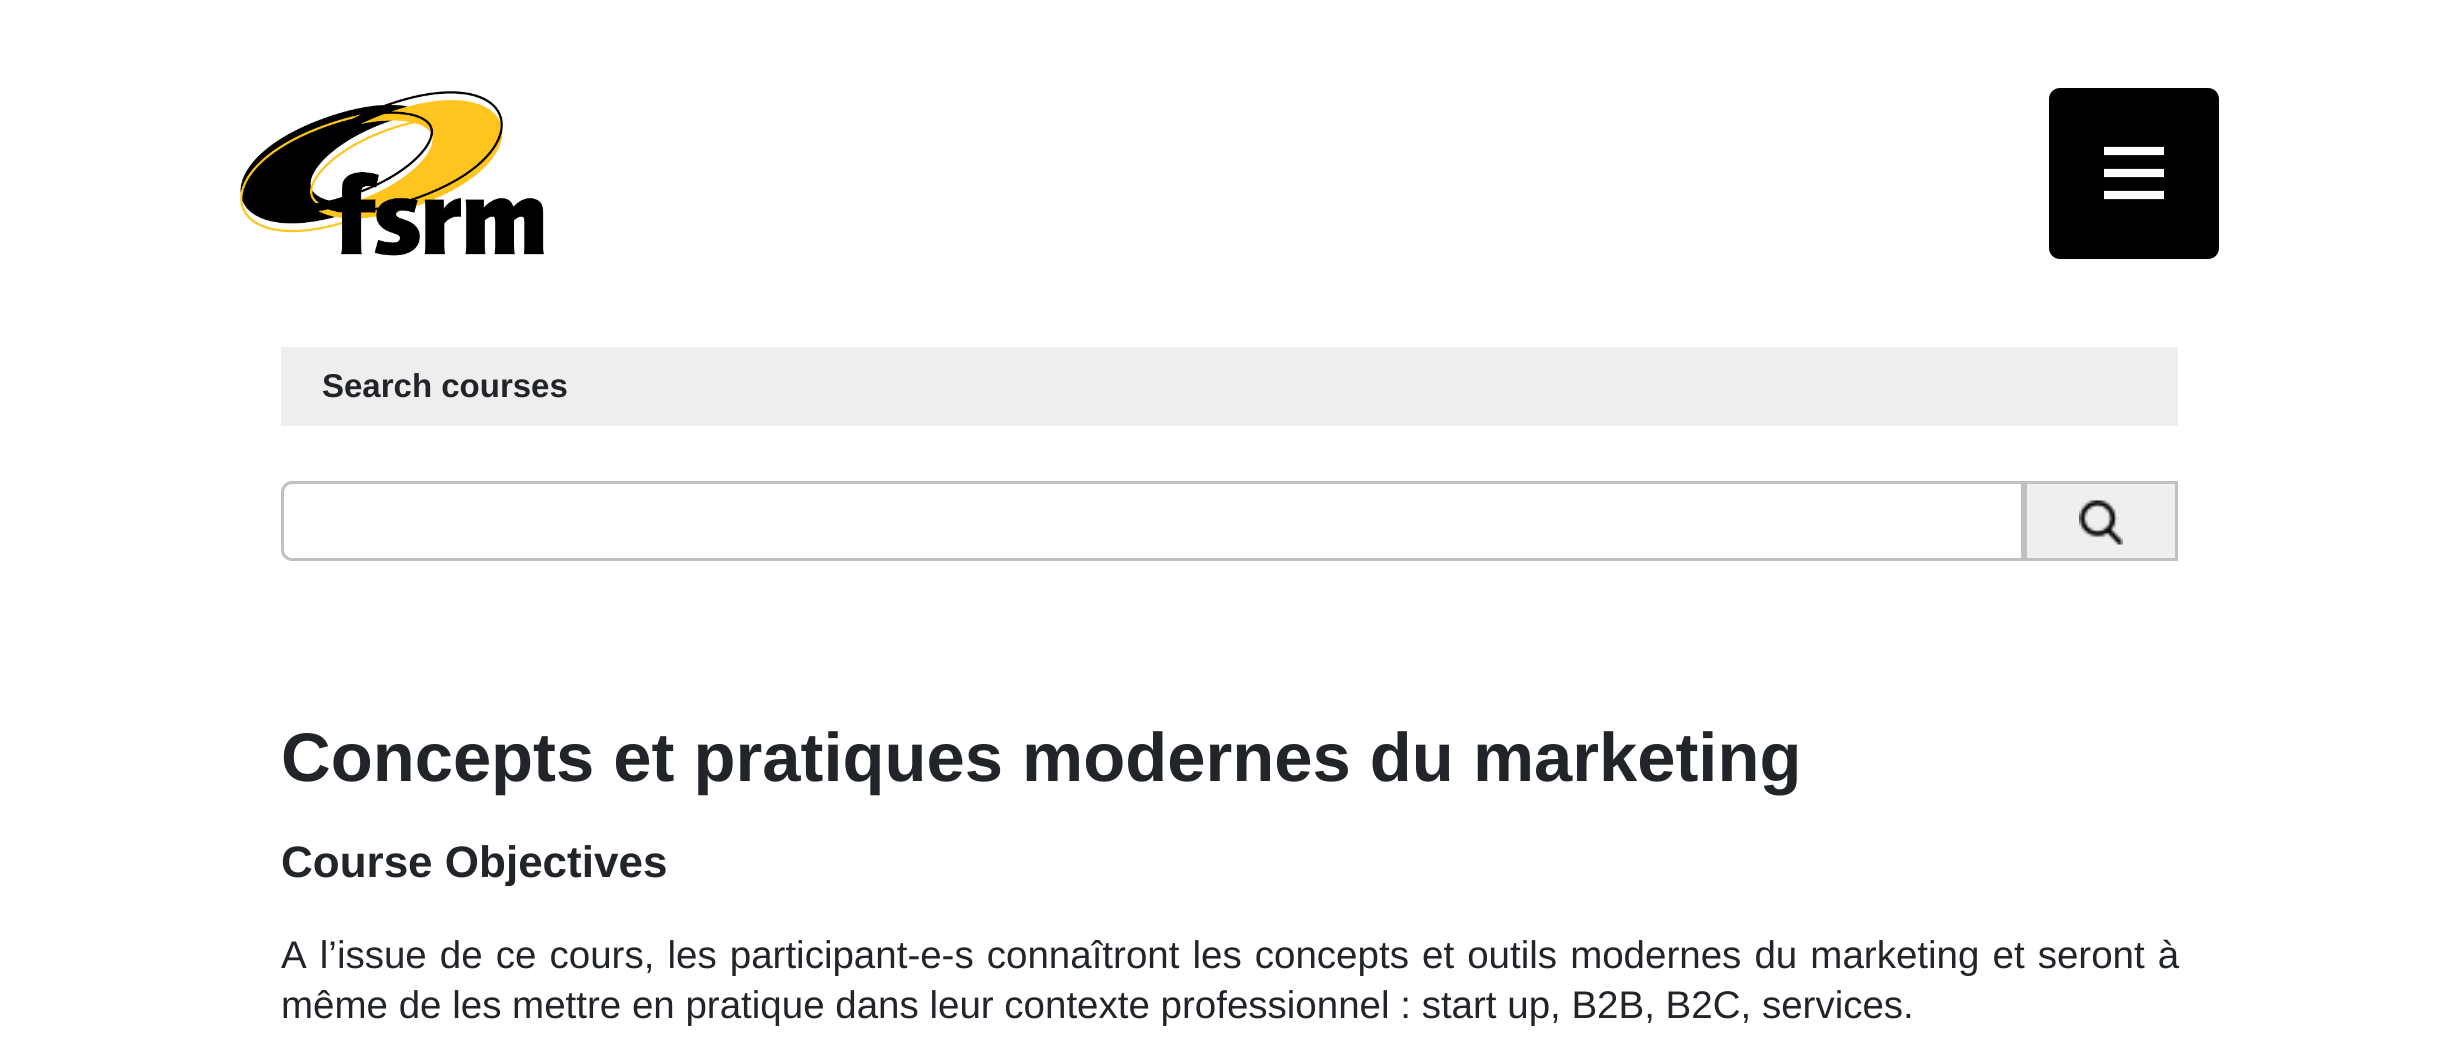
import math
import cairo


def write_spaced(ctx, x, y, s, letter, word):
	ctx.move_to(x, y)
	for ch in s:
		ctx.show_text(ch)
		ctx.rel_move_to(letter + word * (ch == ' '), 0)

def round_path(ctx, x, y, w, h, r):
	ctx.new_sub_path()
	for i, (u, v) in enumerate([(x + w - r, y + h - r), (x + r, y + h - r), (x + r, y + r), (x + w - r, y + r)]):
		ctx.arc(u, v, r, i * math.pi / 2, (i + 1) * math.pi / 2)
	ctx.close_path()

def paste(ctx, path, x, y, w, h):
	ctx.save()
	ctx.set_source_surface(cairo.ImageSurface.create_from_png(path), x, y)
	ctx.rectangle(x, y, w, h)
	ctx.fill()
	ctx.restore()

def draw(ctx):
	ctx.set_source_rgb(1, 1, 1)
	ctx.paint()
	paste(ctx, 'media/1.png', 240, 90, 304, 166)
	ctx.set_source_rgb(0, 0, 0)
	round_path(ctx, 2049, 88, 170, 171, 11)
	ctx.fill()
	round_path(ctx, 2050.5, 89.5, 167, 168, 9.5)
	ctx.set_source_rgba(0, 0, 0, 0.1)
	ctx.set_line_width(3)
	ctx.stroke()
	ctx.new_path()
	ctx.move_to(2104, 151)
	ctx.line_to(2164, 151)
	ctx.move_to(2104, 173)
	ctx.line_to(2164, 173)
	ctx.move_to(2104, 195)
	ctx.line_to(2164, 195)
	ctx.set_source_rgb(1, 1, 1)
	ctx.set_line_width(8.2)
	ctx.stroke()
	ctx.set_source_rgb(0.933, 0.933, 0.933)
	ctx.rectangle(281, 347, 1897, 79)
	ctx.fill()
	ctx.select_font_face('Liberation Sans', cairo.FONT_SLANT_NORMAL, cairo.FONT_WEIGHT_BOLD)
	ctx.set_font_size(33)
	ctx.set_source_rgb(0.129, 0.145, 0.161)
	ctx.move_to(322, 397)
	ctx.show_text('Search courses')
	ctx.new_path()
	ctx.move_to(292, 482.5)
	ctx.line_to(2022.5, 482.5)
	ctx.line_to(2022.5, 559.5)
	ctx.line_to(292, 559.5)
	ctx.curve_to(287, 559.5, 282.5, 555, 282.5, 550)
	ctx.line_to(282.5, 492)
	ctx.curve_to(282.5, 487, 287, 482.5, 292, 482.5)
	ctx.close_path()
	ctx.set_source_rgb(0.753, 0.753, 0.753)
	ctx.set_line_width(3)
	ctx.stroke()
	ctx.set_source_rgb(0.937, 0.937, 0.937)
	ctx.rectangle(2025.5, 482.5, 151, 77)
	ctx.fill_preserve()
	ctx.set_source_rgb(0.753, 0.753, 0.753)
	ctx.stroke()
	paste(ctx, 'media/2.png', 2079, 500, 44, 45)
	ctx.set_font_size(68.75)
	ctx.set_source_rgb(0.129, 0.145, 0.161)
	ctx.move_to(281, 781)
	ctx.show_text('Concepts et pratiques modernes du marketing')
	ctx.set_font_size(44)
	ctx.move_to(281, 877)
	ctx.show_text('Course Objectives')
	ctx.select_font_face('Liberation Sans')
	ctx.set_font_size(38.5)
	write_spaced(ctx, 281, 968, 'A l’issue de ce cours, les participant-e-s connaîtront les concepts et outils modernes du marketing et seront à', 0, 2.4)
	ctx.move_to(281, 1018)
	ctx.show_text('même de les mettre en pratique dans leur contexte professionnel : start up, B2B, B2C, services.')


surface = cairo.ImageSurface(cairo.FORMAT_RGB24, 2456, 1063)
ctx = cairo.Context(surface)
options = cairo.FontOptions()
options.set_hint_metrics(cairo.HINT_METRICS_OFF)
options.set_hint_style(cairo.HINT_STYLE_NONE)
ctx.set_font_options(options)
ctx.set_miter_limit(4)
draw(ctx)
surface.write_to_png('image.png')
